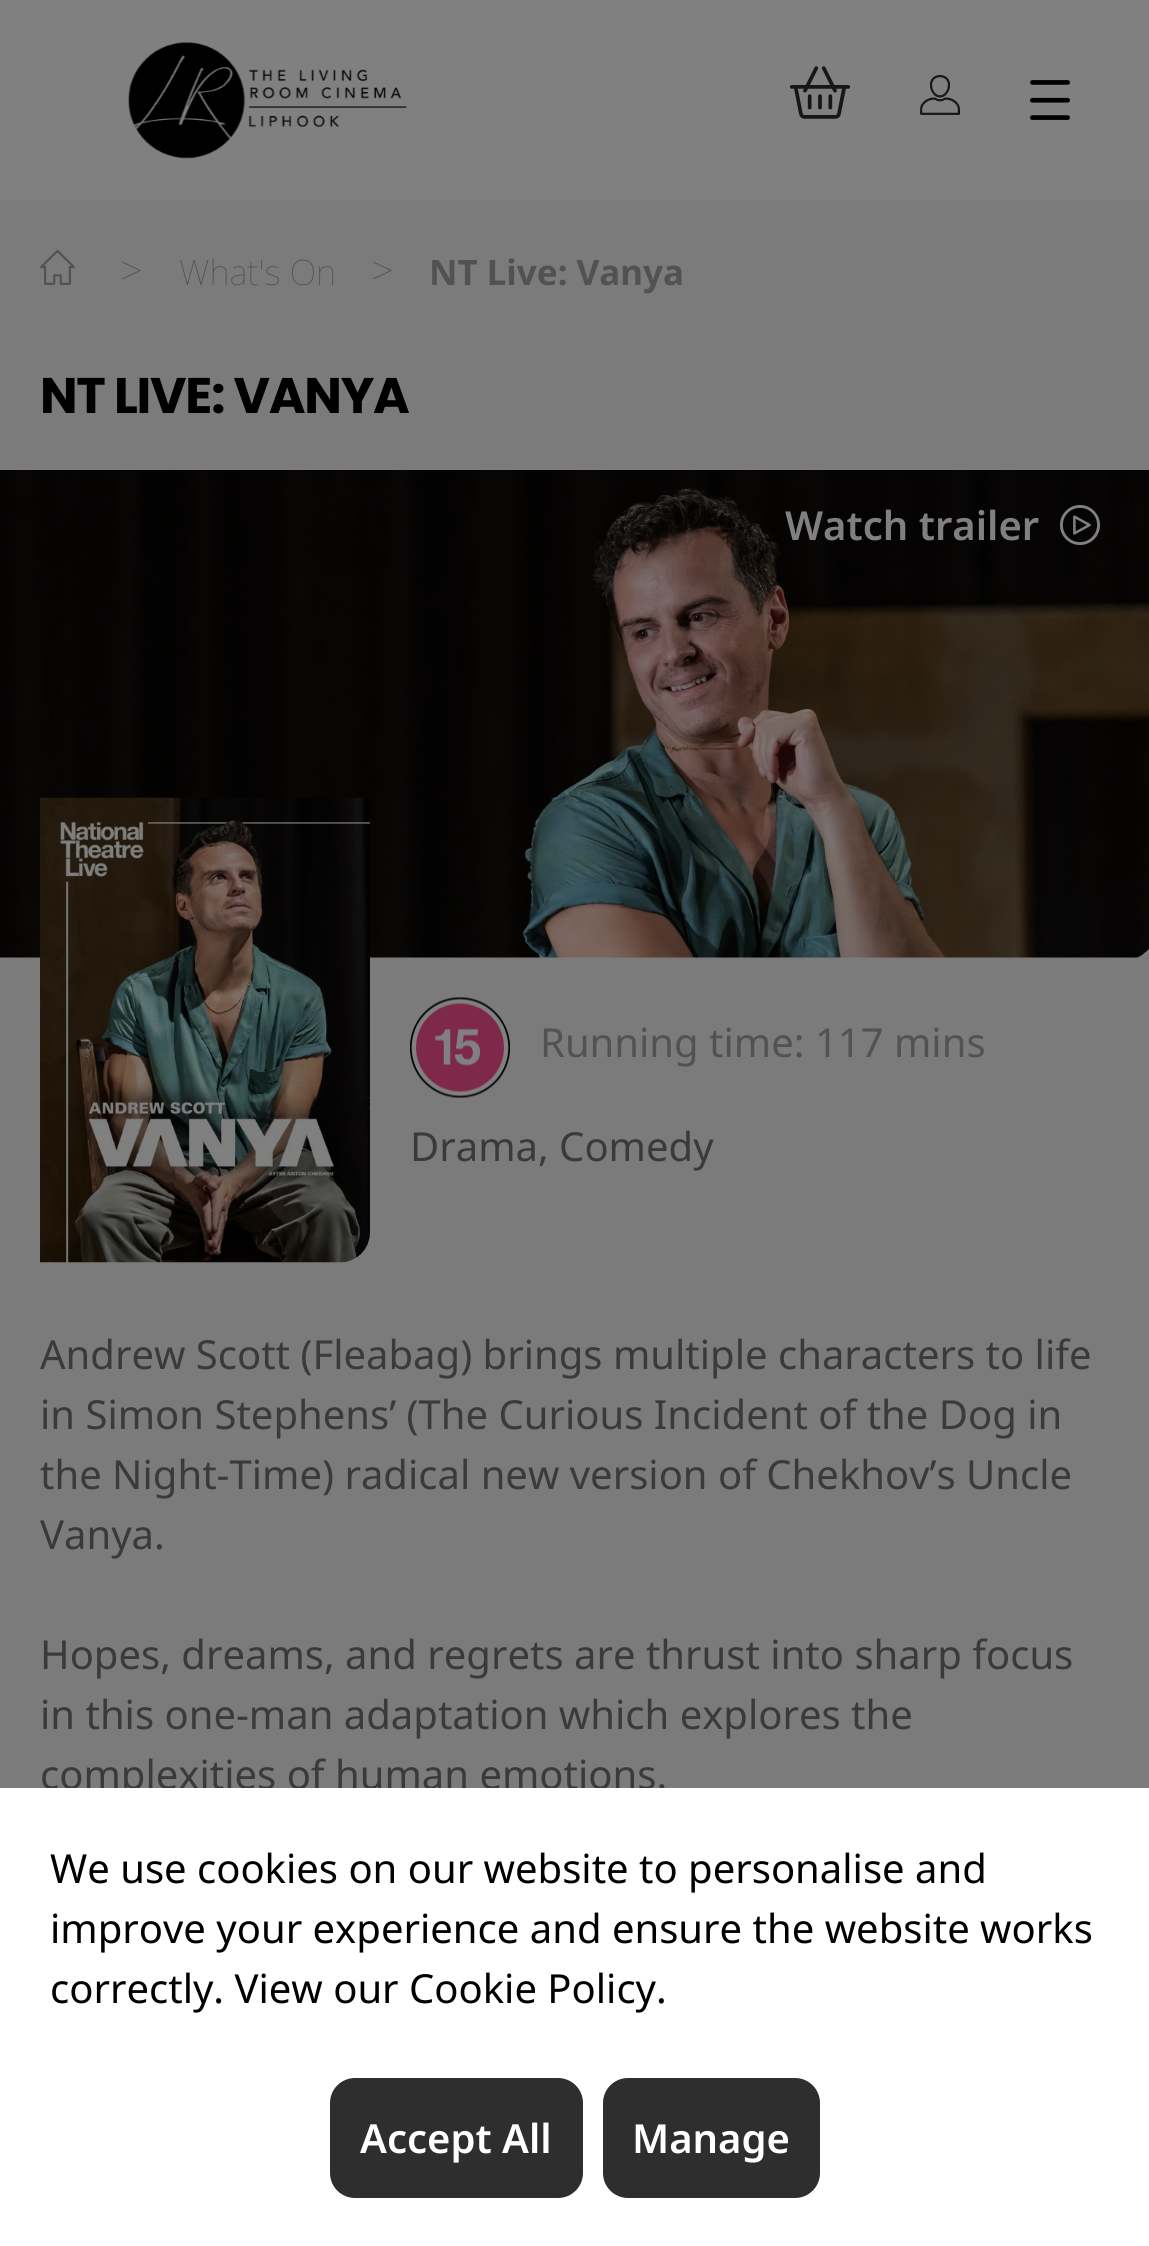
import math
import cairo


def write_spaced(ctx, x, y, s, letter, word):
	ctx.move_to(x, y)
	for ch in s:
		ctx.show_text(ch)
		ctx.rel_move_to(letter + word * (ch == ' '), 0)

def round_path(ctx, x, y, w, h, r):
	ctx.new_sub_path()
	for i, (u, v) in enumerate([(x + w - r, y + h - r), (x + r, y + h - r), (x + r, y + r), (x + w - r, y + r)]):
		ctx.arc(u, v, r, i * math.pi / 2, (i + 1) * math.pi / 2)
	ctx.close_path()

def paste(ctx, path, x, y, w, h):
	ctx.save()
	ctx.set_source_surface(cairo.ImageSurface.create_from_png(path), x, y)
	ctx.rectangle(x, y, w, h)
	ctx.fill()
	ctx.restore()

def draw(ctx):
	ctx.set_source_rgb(0.502, 0.502, 0.502)
	ctx.paint()
	paste(ctx, 'media/1.png', 128, 42, 279, 117)
	paste(ctx, 'media/2.png', 790, 66, 60, 53)
	paste(ctx, 'media/3.png', 920, 75, 40, 40)
	ctx.select_font_face('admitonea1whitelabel')
	ctx.set_font_size(40)
	ctx.set_source_rgb(0, 0, 0)
	ctx.move_to(1030, 120)
	ctx.show_text('@')
	ctx.set_source_rgb(0.482, 0.482, 0.482)
	ctx.rectangle(0, 200, 1149, 1588)
	ctx.fill()
	paste(ctx, 'media/4.png', 40, 250, 35, 35)
	ctx.select_font_face('Noto Sans Thin')
	ctx.set_source_rgb(0.322, 0.322, 0.322)
	ctx.move_to(120, 285)
	ctx.show_text('>')
	ctx.set_font_size(35)
	ctx.move_to(179, 285)
	ctx.show_text('What\'s On')
	ctx.set_font_size(40)
	ctx.move_to(371, 285)
	ctx.show_text('>')
	ctx.select_font_face('Noto Sans', cairo.FONT_SLANT_NORMAL, cairo.FONT_WEIGHT_BOLD)
	ctx.set_font_size(35)
	ctx.move_to(429, 285)
	ctx.show_text('NT Live: Vanya')
	ctx.select_font_face('Poppins', cairo.FONT_SLANT_NORMAL, cairo.FONT_WEIGHT_BOLD)
	ctx.set_font_size(50)
	ctx.set_source_rgb(0, 0, 0)
	write_spaced(ctx, 40, 413, 'NT LIVE: VANYA', -1.25, 0)
	paste(ctx, 'media/5.png', 0, 470, 1149, 488)
	ctx.select_font_face('Noto Sans SemiBold')
	ctx.set_font_size(40)
	ctx.set_source_rgb(0.502, 0.502, 0.502)
	ctx.move_to(785, 540)
	ctx.show_text('Watch trailer')
	paste(ctx, 'media/6.png', 1060, 505, 40, 40)
	paste(ctx, 'media/7.png', 40, 797, 330, 466)
	paste(ctx, 'media/8.png', 410, 997, 100, 101)
	ctx.select_font_face('Noto Sans')
	ctx.set_source_rgb(0.322, 0.322, 0.322)
	ctx.move_to(540, 1057)
	ctx.show_text('Running time: 117 mins')
	ctx.set_source_rgb(0.227, 0.227, 0.227)
	for x, y, s in [
		(410, 1161, 'Drama, Comedy'),
		(40, 1369, 'Andrew Scott (Fleabag) brings multiple characters to life'),
		(40, 1429, 'in Simon Stephens’ (The Curious Incident of the Dog in'),
		(40, 1489, 'the Night-Time) radical new version of Chekhov’s Uncle'),
		(40, 1549, 'Vanya.'),
		(40, 1669, 'Hopes, dreams, and regrets are thrust into sharp focus'),
		(40, 1729, 'in this one-man adaptation which explores the'),
		(40, 1789, 'complexities of human emotions.'),
	]:
		ctx.move_to(x, y)
		ctx.show_text(s)
	ctx.set_source_rgb(1, 1, 1)
	ctx.rectangle(0, 1788, 1149, 458)
	ctx.fill()
	ctx.set_source_rgb(0, 0, 0)
	for x, y, s in [
		(50, 1883, 'We use cookies on our website to personalise and'),
		(50, 1943, 'improve your experience and ensure the website works'),
		(50, 2003, 'correctly. View our Cookie Policy.'),
	]:
		ctx.move_to(x, y)
		ctx.show_text(s)
	ctx.set_source_rgb(0.18, 0.18, 0.18)
	round_path(ctx, 330, 2078, 253, 120, 25)
	ctx.fill()
	ctx.select_font_face('Noto Sans SemiBold')
	ctx.set_source_rgb(1, 1, 1)
	ctx.move_to(360, 2153)
	ctx.show_text('Accept All')
	ctx.set_source_rgb(0.18, 0.18, 0.18)
	round_path(ctx, 603, 2078, 217, 120, 25)
	ctx.fill()
	ctx.set_source_rgb(1, 1, 1)
	ctx.move_to(632, 2153)
	ctx.show_text('Manage')


surface = cairo.ImageSurface(cairo.FORMAT_RGB24, 1149, 2246)
ctx = cairo.Context(surface)
options = cairo.FontOptions()
options.set_hint_metrics(cairo.HINT_METRICS_OFF)
options.set_hint_style(cairo.HINT_STYLE_NONE)
ctx.set_font_options(options)
ctx.set_miter_limit(4)
draw(ctx)
surface.write_to_png('image.png')
